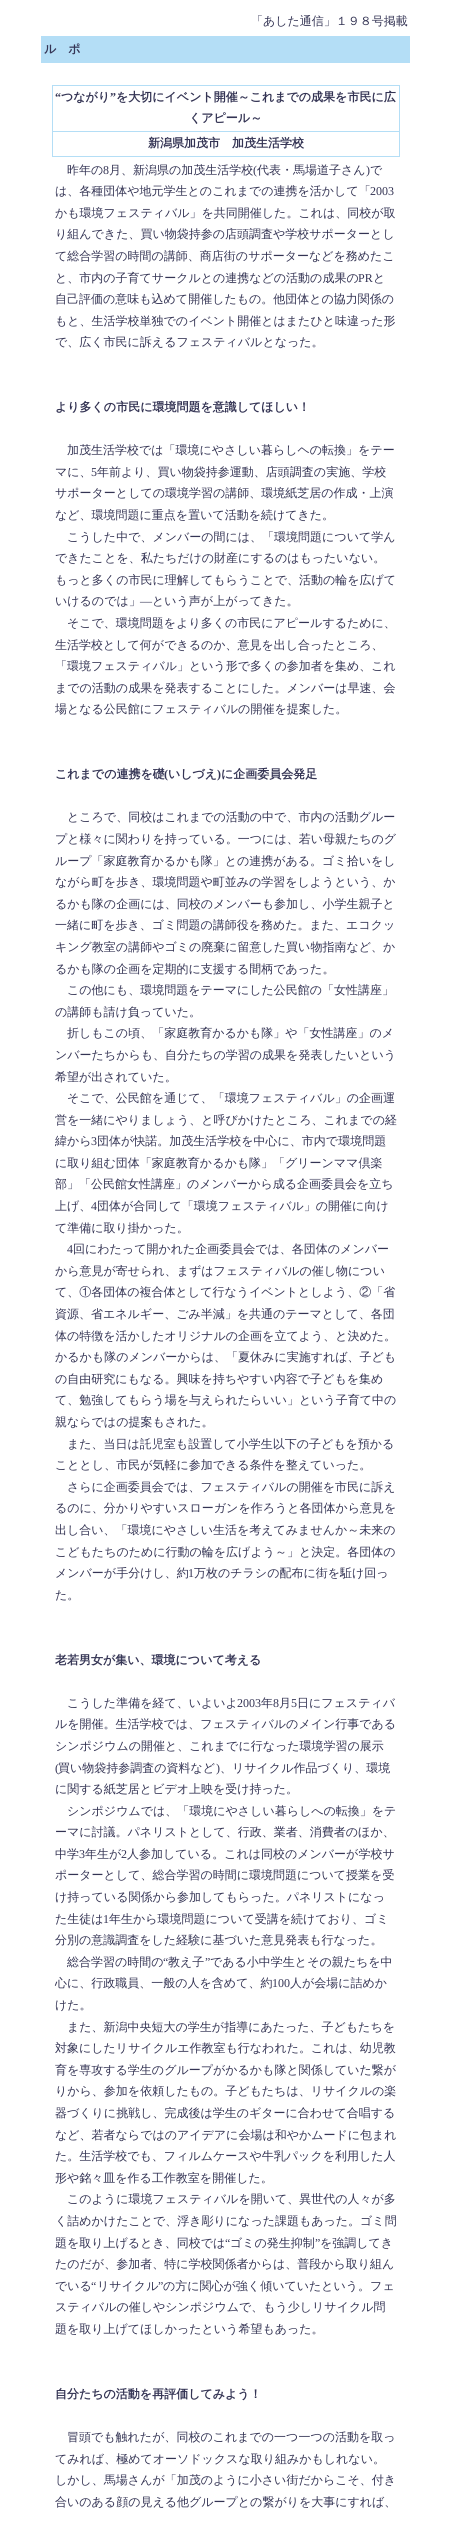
import math
import cairo


def draw(ctx):
	ctx.set_source_rgb(1, 1, 1)
	ctx.paint()
	ctx.select_font_face('WenQuanYi Zen Hei Medium')
	ctx.set_font_size(12)
	ctx.set_source_rgb(0.204, 0.204, 0.329)
	ctx.move_to(251, 25)
	ctx.show_text('「あした通信」１９８号掲載')
	ctx.set_source_rgb(0.706, 0.871, 0.961)
	ctx.rectangle(41, 36, 369, 27)
	ctx.fill()
	ctx.select_font_face('WenQuanYi Zen Hei', cairo.FONT_SLANT_NORMAL, cairo.FONT_WEIGHT_BOLD)
	ctx.set_source_rgb(0.204, 0.204, 0.329)
	ctx.move_to(44, 53)
	ctx.show_text('ル　ポ')
	ctx.set_source_rgb(0.706, 0.871, 0.961)
	ctx.rectangle(52, 85, 348, 72)
	ctx.fill()
	ctx.set_source_rgb(1, 1, 1)
	ctx.rectangle(53, 86, 346, 45)
	ctx.fill()
	ctx.select_font_face('Liberation Serif', cairo.FONT_SLANT_NORMAL, cairo.FONT_WEIGHT_BOLD)
	ctx.set_source_rgb(0.204, 0.204, 0.329)
	ctx.move_to(55, 101)
	ctx.show_text('“')
	ctx.select_font_face('WenQuanYi Zen Hei', cairo.FONT_SLANT_NORMAL, cairo.FONT_WEIGHT_BOLD)
	ctx.move_to(61, 101)
	ctx.show_text('つながり')
	ctx.select_font_face('Liberation Serif', cairo.FONT_SLANT_NORMAL, cairo.FONT_WEIGHT_BOLD)
	ctx.move_to(110, 101)
	ctx.show_text('”')
	ctx.select_font_face('WenQuanYi Zen Hei', cairo.FONT_SLANT_NORMAL, cairo.FONT_WEIGHT_BOLD)
	ctx.move_to(116, 101)
	ctx.show_text('を大切にイベント開催～これまでの成果を市民に広')
	ctx.move_to(189, 122)
	ctx.show_text('くアピール～')
	ctx.set_source_rgb(1, 1, 1)
	ctx.rectangle(53, 132, 346, 24)
	ctx.fill()
	ctx.set_source_rgb(0.204, 0.204, 0.329)
	ctx.move_to(148, 147)
	ctx.show_text('新潟県加茂市　加茂生活学校')
	ctx.select_font_face('WenQuanYi Zen Hei Medium')
	ctx.move_to(67, 174)
	ctx.show_text('昨年の')
	ctx.select_font_face('Liberation Serif')
	ctx.move_to(103, 174)
	ctx.show_text('8')
	ctx.select_font_face('WenQuanYi Zen Hei Medium')
	ctx.move_to(109, 174)
	ctx.show_text('月、新潟県の加茂生活学校')
	ctx.select_font_face('Liberation Serif')
	ctx.move_to(253, 174)
	ctx.show_text('(')
	ctx.select_font_face('WenQuanYi Zen Hei Medium')
	ctx.move_to(257, 174)
	ctx.show_text('代表・馬場道子さん')
	ctx.select_font_face('Liberation Serif')
	ctx.move_to(366, 174)
	ctx.show_text(')')
	ctx.select_font_face('WenQuanYi Zen Hei Medium')
	ctx.move_to(370, 174)
	ctx.show_text('で')
	ctx.move_to(55, 195)
	ctx.show_text('は、各種団体や地元学生とのこれまでの連携を活かして「')
	ctx.select_font_face('Liberation Serif')
	ctx.move_to(370, 195)
	ctx.show_text('2003')
	ctx.select_font_face('WenQuanYi Zen Hei Medium')
	for x, y, s in [
		(55, 217, 'かも環境フェスティバル」を共同開催した。これは、同校が取'),
		(55, 238, 'り組んできた、買い物袋持参の店頭調査や学校サポーターとし'),
		(55, 260, 'て総合学習の時間の講師、商店街のサポーターなどを務めたこ'),
		(55, 282, 'と、市内の子育てサークルとの連携などの活動の成果の'),
	]:
		ctx.move_to(x, y)
		ctx.show_text(s)
	ctx.select_font_face('Liberation Serif')
	ctx.move_to(358, 282)
	ctx.show_text('PR')
	ctx.select_font_face('WenQuanYi Zen Hei Medium')
	for x, y, s in [
		(373, 282, 'と'),
		(55, 303, '自己評価の意味も込めて開催したもの。他団体との協力関係の'),
		(55, 325, 'もと、生活学校単独でのイベント開催とはまたひと味違った形'),
		(55, 346, 'で、広く市民に訴えるフェスティバルとなった。'),
	]:
		ctx.move_to(x, y)
		ctx.show_text(s)
	ctx.select_font_face('WenQuanYi Zen Hei', cairo.FONT_SLANT_NORMAL, cairo.FONT_WEIGHT_BOLD)
	ctx.move_to(55, 411)
	ctx.show_text('より多くの市民に環境問題を意識してほしい！')
	ctx.select_font_face('WenQuanYi Zen Hei Medium')
	ctx.move_to(67, 454)
	ctx.show_text('加茂生活学校では「環境にやさしい暮らしヘの転換」をテー')
	ctx.move_to(55, 476)
	ctx.show_text('マに、')
	ctx.select_font_face('Liberation Serif')
	ctx.move_to(91, 476)
	ctx.show_text('5')
	ctx.select_font_face('WenQuanYi Zen Hei Medium')
	for x, y, s in [
		(97, 476, '年前より、買い物袋持参運動、店頭調査の実施、学校'),
		(55, 497, 'サポーターとしての環境学習の講師、環境紙芝居の作成・上演'),
		(55, 519, 'など、環境問題に重点を置いて活動を続けてきた。'),
		(67, 541, 'こうした中で、メンバーの間には、「環境問題について学ん'),
		(55, 562, 'できたことを、私たちだけの財産にするのはもったいない。'),
		(55, 584, 'もっと多くの市民に理解してもらうことで、活動の輪を広げて'),
		(55, 605, 'いけるのでは」'),
	]:
		ctx.move_to(x, y)
		ctx.show_text(s)
	ctx.select_font_face('Liberation Serif')
	ctx.move_to(140, 605)
	ctx.show_text('―')
	ctx.select_font_face('WenQuanYi Zen Hei Medium')
	for x, y, s in [
		(152, 605, 'という声が上がってきた。'),
		(67, 627, 'そこで、環境問題をより多くの市民にアピールするために、'),
		(55, 649, '生活学校として何ができるのか、意見を出し合ったところ、'),
		(55, 670, '「環境フェスティバル」という形で多くの参加者を集め、これ'),
		(55, 692, 'までの活動の成果を発表することにした。メンバーは早速、会'),
		(55, 713, '場となる公民館にフェスティバルの開催を提案した。'),
	]:
		ctx.move_to(x, y)
		ctx.show_text(s)
	ctx.select_font_face('WenQuanYi Zen Hei', cairo.FONT_SLANT_NORMAL, cairo.FONT_WEIGHT_BOLD)
	ctx.move_to(55, 778)
	ctx.show_text('これまでの連携を礎')
	ctx.select_font_face('Liberation Serif', cairo.FONT_SLANT_NORMAL, cairo.FONT_WEIGHT_BOLD)
	ctx.move_to(164, 778)
	ctx.show_text('(')
	ctx.select_font_face('WenQuanYi Zen Hei', cairo.FONT_SLANT_NORMAL, cairo.FONT_WEIGHT_BOLD)
	ctx.move_to(168, 778)
	ctx.show_text('いしづえ')
	ctx.select_font_face('Liberation Serif', cairo.FONT_SLANT_NORMAL, cairo.FONT_WEIGHT_BOLD)
	ctx.move_to(217, 778)
	ctx.show_text(')')
	ctx.select_font_face('WenQuanYi Zen Hei', cairo.FONT_SLANT_NORMAL, cairo.FONT_WEIGHT_BOLD)
	ctx.move_to(221, 778)
	ctx.show_text('に企画委員会発足')
	ctx.select_font_face('WenQuanYi Zen Hei Medium')
	for x, y, s in [
		(67, 821, 'ところで、同校はこれまでの活動の中で、市内の活動グルー'),
		(55, 843, 'プと様々に関わりを持っている。一つには、若い母親たちのグ'),
		(55, 865, 'ループ「家庭教育かるかも隊」との連携がある。ゴミ拾いをし'),
		(55, 886, 'ながら町を歩き、環境問題や町並みの学習をしようという、か'),
		(55, 908, 'るかも隊の企画には、同校のメンバーも参加し、小学生親子と'),
		(55, 929, '一緒に町を歩き、ゴミ問題の講師役を務めた。また、エコクッ'),
		(55, 951, 'キング教室の講師やゴミの廃棄に留意した買い物指南など、か'),
		(55, 973, 'るかも隊の企画を定期的に支援する間柄であった。'),
		(67, 994, 'この他にも、環境問題をテーマにした公民館の「女性講座」'),
		(55, 1016, 'の講師も請け負っていた。'),
		(67, 1037, '折しもこの頃、「家庭教育かるかも隊」や「女性講座」のメ'),
		(55, 1059, 'ンバーたちからも、自分たちの学習の成果を発表したいという'),
		(55, 1081, '希望が出されていた。'),
		(67, 1102, 'そこで、公民館を通じて、「環境フェスティバル」の企画運'),
		(55, 1124, '営を一緒にやりましょう、と呼びかけたところ、これまでの経'),
		(55, 1145, '緯から'),
	]:
		ctx.move_to(x, y)
		ctx.show_text(s)
	ctx.select_font_face('Liberation Serif')
	ctx.move_to(91, 1145)
	ctx.show_text('3')
	ctx.select_font_face('WenQuanYi Zen Hei Medium')
	for x, y, s in [
		(97, 1145, '団体が快諾。加茂生活学校を中心に、市内で環境問題'),
		(55, 1167, 'に取り組む団体「家庭教育かるかも隊」「グリーンママ倶楽'),
		(55, 1188, '部」「公民館女性講座」のメンバーから成る企画委員会を立ち'),
		(55, 1210, '上げ、'),
	]:
		ctx.move_to(x, y)
		ctx.show_text(s)
	ctx.select_font_face('Liberation Serif')
	ctx.move_to(91, 1210)
	ctx.show_text('4')
	ctx.select_font_face('WenQuanYi Zen Hei Medium')
	ctx.move_to(97, 1210)
	ctx.show_text('団体が合同して「環境フェスティバル」の開催に向け')
	ctx.move_to(55, 1232)
	ctx.show_text('て準備に取り掛かった。')
	ctx.select_font_face('Liberation Serif')
	ctx.move_to(67, 1253)
	ctx.show_text('4')
	ctx.select_font_face('WenQuanYi Zen Hei Medium')
	for x, y, s in [
		(73, 1253, '回にわたって開かれた企画委員会では、各団体のメンバー'),
		(55, 1275, 'から意見が寄せられ、まずはフェスティバルの催し物につい'),
		(55, 1296, 'て、①各団体の複合体として行なうイベントとしよう、②「省'),
		(55, 1318, '資源、省エネルギー、ごみ半減」を共通のテーマとして、各団'),
		(55, 1340, '体の特徴を活かしたオリジナルの企画を立てよう、と決めた。'),
		(55, 1361, 'かるかも隊のメンバーからは、「夏休みに実施すれば、子ども'),
		(55, 1383, 'の自由研究にもなる。興味を持ちやすい内容で子どもを集め'),
		(55, 1404, 'て、勉強してもらう場を与えられたらいい」という子育て中の'),
		(55, 1426, '親ならではの提案もされた。'),
		(67, 1448, 'また、当日は託児室も設置して小学生以下の子どもを預かる'),
		(55, 1469, 'こととし、市民が気軽に参加できる条件を整えていった。'),
		(67, 1491, 'さらに企画委員会では、フェスティバルの開催を市民に訴え'),
		(55, 1512, 'るのに、分かりやすいスローガンを作ろうと各団体から意見を'),
		(55, 1534, '出し合い、「環境にやさしい生活を考えてみませんか～未来の'),
		(55, 1556, 'こどもたちのために行動の輪を広げよう～」と決定。各団体の'),
		(55, 1577, 'メンバーが手分けし、約'),
	]:
		ctx.move_to(x, y)
		ctx.show_text(s)
	ctx.select_font_face('Liberation Serif')
	ctx.move_to(188, 1577)
	ctx.show_text('1')
	ctx.select_font_face('WenQuanYi Zen Hei Medium')
	ctx.move_to(194, 1577)
	ctx.show_text('万枚のチラシの配布に街を駈け回っ')
	ctx.move_to(55, 1599)
	ctx.show_text('た。')
	ctx.select_font_face('WenQuanYi Zen Hei', cairo.FONT_SLANT_NORMAL, cairo.FONT_WEIGHT_BOLD)
	ctx.move_to(55, 1664)
	ctx.show_text('老若男女が集い、環境について考える')
	ctx.select_font_face('WenQuanYi Zen Hei Medium')
	ctx.move_to(67, 1707)
	ctx.show_text('こうした準備を経て、いよいよ')
	ctx.select_font_face('Liberation Serif')
	ctx.move_to(237, 1707)
	ctx.show_text('2003')
	ctx.select_font_face('WenQuanYi Zen Hei Medium')
	ctx.move_to(261, 1707)
	ctx.show_text('年')
	ctx.select_font_face('Liberation Serif')
	ctx.move_to(273, 1707)
	ctx.show_text('8')
	ctx.select_font_face('WenQuanYi Zen Hei Medium')
	ctx.move_to(279, 1707)
	ctx.show_text('月')
	ctx.select_font_face('Liberation Serif')
	ctx.move_to(291, 1707)
	ctx.show_text('5')
	ctx.select_font_face('WenQuanYi Zen Hei Medium')
	for x, y, s in [
		(297, 1707, '日にフェスティバ'),
		(55, 1728, 'ルを開催。生活学校では、フェスティバルのメイン行事である'),
		(55, 1750, 'シンポジウムの開催と、これまでに行なった環境学習の展示'),
	]:
		ctx.move_to(x, y)
		ctx.show_text(s)
	ctx.select_font_face('Liberation Serif')
	ctx.move_to(55, 1772)
	ctx.show_text('(')
	ctx.select_font_face('WenQuanYi Zen Hei Medium')
	ctx.move_to(58, 1772)
	ctx.show_text('買い物袋持参調査の資料など')
	ctx.select_font_face('Liberation Serif')
	ctx.move_to(216, 1772)
	ctx.show_text(')')
	ctx.select_font_face('WenQuanYi Zen Hei Medium')
	for x, y, s in [
		(220, 1772, '、リサイクル作品づくり、環境'),
		(55, 1793, 'に関する紙芝居とビデオ上映を受け持った。'),
		(67, 1815, 'シンポジウムでは、「環境にやさしい暮らしへの転換」をテ'),
		(55, 1836, 'ーマに討議。パネリストとして、行政、業者、消費者のほか、'),
		(55, 1858, '中学'),
	]:
		ctx.move_to(x, y)
		ctx.show_text(s)
	ctx.select_font_face('Liberation Serif')
	ctx.move_to(79, 1858)
	ctx.show_text('3')
	ctx.select_font_face('WenQuanYi Zen Hei Medium')
	ctx.move_to(85, 1858)
	ctx.show_text('年生が')
	ctx.select_font_face('Liberation Serif')
	ctx.move_to(121, 1858)
	ctx.show_text('2')
	ctx.select_font_face('WenQuanYi Zen Hei Medium')
	for x, y, s in [
		(127, 1858, '人参加している。これは同校のメンバーが学校サ'),
		(55, 1879, 'ポーターとして、総合学習の時間に環境問題について授業を受'),
		(55, 1901, 'け持っている関係から参加してもらった。パネリストになっ'),
		(55, 1923, 'た生徒は'),
	]:
		ctx.move_to(x, y)
		ctx.show_text(s)
	ctx.select_font_face('Liberation Serif')
	ctx.move_to(103, 1923)
	ctx.show_text('1')
	ctx.select_font_face('WenQuanYi Zen Hei Medium')
	for x, y, s in [
		(109, 1923, '年生から環境問題について受講を続けており、ゴミ'),
		(55, 1944, '分別の意識調査をした経験に基づいた意見発表も行なった。'),
		(67, 1966, '総合学習の時間の'),
	]:
		ctx.move_to(x, y)
		ctx.show_text(s)
	ctx.select_font_face('Liberation Serif')
	ctx.move_to(163, 1966)
	ctx.show_text('“')
	ctx.select_font_face('WenQuanYi Zen Hei Medium')
	ctx.move_to(168, 1966)
	ctx.show_text('教え子')
	ctx.select_font_face('Liberation Serif')
	ctx.move_to(205, 1966)
	ctx.show_text('”')
	ctx.select_font_face('WenQuanYi Zen Hei Medium')
	ctx.move_to(210, 1966)
	ctx.show_text('である小中学生とその親たちを中')
	ctx.move_to(55, 1987)
	ctx.show_text('心に、行政職員、一般の人を含めて、約')
	ctx.select_font_face('Liberation Serif')
	ctx.move_to(272, 1987)
	ctx.show_text('100')
	ctx.select_font_face('WenQuanYi Zen Hei Medium')
	for x, y, s in [
		(290, 1987, '人が会場に詰めか'),
		(55, 2009, 'けた。'),
		(67, 2031, 'また、新潟中央短大の学生が指導にあたった、子どもたちを'),
		(55, 2052, '対象にしたリサイクルエ作教室も行なわれた。これは、幼児教'),
		(55, 2074, '育を専攻する学生のグループがかるかも隊と関係していた繋が'),
		(55, 2095, 'りから、参加を依頼したもの。子どもたちは、リサイクルの楽'),
		(55, 2117, '器づくりに挑戦し、完成後は学生のギターに合わせて合唱する'),
		(55, 2139, 'など、若者ならではのアイデアに会場は和やかムードに包まれ'),
		(55, 2160, 'た。生活学校でも、フィルムケースや牛乳パックを利用した人'),
		(55, 2182, '形や銘々皿を作る工作教室を開催した。'),
		(67, 2203, 'このように環境フェスティバルを開いて、異世代の人々が多'),
		(55, 2225, 'く詰めかけたことで、浮き彫りになった課題もあった。ゴミ問'),
		(55, 2247, '題を取り上げるとき、同校では'),
	]:
		ctx.move_to(x, y)
		ctx.show_text(s)
	ctx.select_font_face('Liberation Serif')
	ctx.move_to(225, 2247)
	ctx.show_text('“')
	ctx.select_font_face('WenQuanYi Zen Hei Medium')
	ctx.move_to(230, 2247)
	ctx.show_text('ゴミの発生抑制')
	ctx.select_font_face('Liberation Serif')
	ctx.move_to(315, 2247)
	ctx.show_text('”')
	ctx.select_font_face('WenQuanYi Zen Hei Medium')
	for x, y, s in [
		(320, 2247, 'を強調してき'),
		(55, 2268, 'たのだが、参加者、特に学校関係者からは、普段から取り組ん'),
		(55, 2290, 'でいる'),
	]:
		ctx.move_to(x, y)
		ctx.show_text(s)
	ctx.select_font_face('Liberation Serif')
	ctx.move_to(91, 2290)
	ctx.show_text('“')
	ctx.select_font_face('WenQuanYi Zen Hei Medium')
	ctx.move_to(97, 2290)
	ctx.show_text('リサイクル')
	ctx.select_font_face('Liberation Serif')
	ctx.move_to(158, 2290)
	ctx.show_text('”')
	ctx.select_font_face('WenQuanYi Zen Hei Medium')
	for x, y, s in [
		(163, 2290, 'の方に関心が強く傾いていたという。フェ'),
		(55, 2311, 'スティバルの催しやシンポジウムで、もう少しリサイクル問'),
		(55, 2333, '題を取り上げてほしかったという希望もあった。'),
	]:
		ctx.move_to(x, y)
		ctx.show_text(s)
	ctx.select_font_face('WenQuanYi Zen Hei', cairo.FONT_SLANT_NORMAL, cairo.FONT_WEIGHT_BOLD)
	ctx.move_to(55, 2398)
	ctx.show_text('自分たちの活動を再評価してみよう！')
	ctx.select_font_face('WenQuanYi Zen Hei Medium')
	for x, y, s in [
		(67, 2441, '冒頭でも触れたが、同校のこれまでの一つ一つの活動を取っ'),
		(55, 2463, 'てみれば、極めてオーソドックスな取り組みかもしれない。'),
		(55, 2484, 'しかし、馬場さんが「加茂のように小さい街だからこそ、付き'),
		(55, 2506, '合いのある顔の見える他グループとの繋がりを大事にすれば、'),
	]:
		ctx.move_to(x, y)
		ctx.show_text(s)


surface = cairo.ImageSurface(cairo.FORMAT_RGB24, 451, 2522)
ctx = cairo.Context(surface)
options = cairo.FontOptions()
options.set_hint_metrics(cairo.HINT_METRICS_OFF)
options.set_hint_style(cairo.HINT_STYLE_NONE)
ctx.set_font_options(options)
ctx.set_miter_limit(4)
draw(ctx)
surface.write_to_png('image.png')
